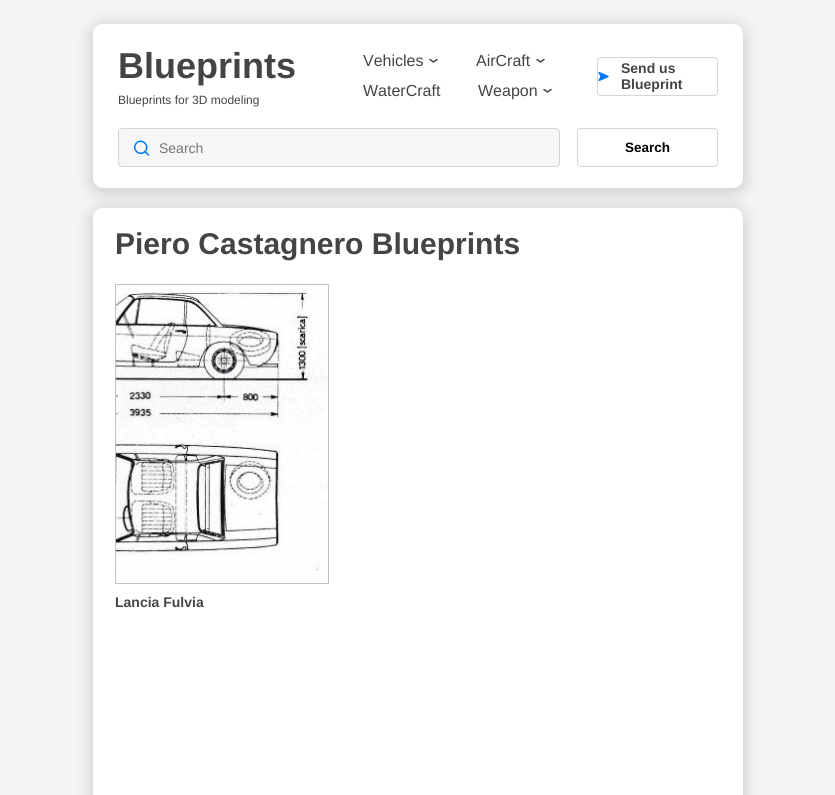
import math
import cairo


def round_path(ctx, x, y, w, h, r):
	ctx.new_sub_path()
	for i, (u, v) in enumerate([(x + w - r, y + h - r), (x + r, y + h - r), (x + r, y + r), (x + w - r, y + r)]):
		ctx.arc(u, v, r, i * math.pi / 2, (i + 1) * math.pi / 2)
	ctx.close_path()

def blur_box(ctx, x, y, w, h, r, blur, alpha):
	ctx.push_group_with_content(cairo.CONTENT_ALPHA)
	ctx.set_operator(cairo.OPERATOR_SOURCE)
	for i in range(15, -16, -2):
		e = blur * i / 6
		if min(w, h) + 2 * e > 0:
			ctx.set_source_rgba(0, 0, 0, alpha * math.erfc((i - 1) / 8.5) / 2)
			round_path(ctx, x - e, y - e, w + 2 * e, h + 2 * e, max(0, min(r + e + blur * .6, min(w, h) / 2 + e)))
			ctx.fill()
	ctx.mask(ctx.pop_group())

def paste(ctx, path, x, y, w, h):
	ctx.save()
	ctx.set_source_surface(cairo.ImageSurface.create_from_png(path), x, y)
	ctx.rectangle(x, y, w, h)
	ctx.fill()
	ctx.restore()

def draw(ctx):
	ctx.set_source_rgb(0.957, 0.957, 0.957)
	ctx.paint()
	ctx.set_source_rgb(0, 0, 0)
	blur_box(ctx, 90, 24, 656, 170, 13, 7.5, 0.15)
	ctx.set_source_rgb(1, 1, 1)
	round_path(ctx, 93, 24, 650, 164, 10)
	ctx.fill()
	ctx.select_font_face('Liberation Sans', cairo.FONT_SLANT_NORMAL, cairo.FONT_WEIGHT_BOLD)
	ctx.set_font_size(36)
	ctx.set_source_rgb(0.267, 0.267, 0.267)
	ctx.move_to(118, 78)
	ctx.show_text('Blueprints')
	ctx.select_font_face('Liberation Sans')
	ctx.set_font_size(12)
	ctx.move_to(118, 104)
	ctx.show_text('Blueprints for 3D modeling')
	ctx.set_font_size(16)
	ctx.move_to(363, 66)
	ctx.show_text('Vehicles')
	ctx.save()
	ctx.rectangle(429, 59, 9, 5)
	ctx.clip()
	ctx.new_path()
	ctx.move_to(430, 59.5)
	ctx.line_to(433.5, 62)
	ctx.line_to(437, 59.5)
	ctx.set_line_width(1.5)
	ctx.set_line_cap(cairo.LINE_CAP_ROUND)
	ctx.set_line_join(cairo.LINE_JOIN_ROUND)
	ctx.stroke()
	ctx.restore()
	ctx.move_to(476, 66)
	ctx.show_text('AirCraft')
	ctx.save()
	ctx.rectangle(536, 59, 9, 5)
	ctx.clip()
	ctx.new_path()
	ctx.move_to(537, 59.5)
	ctx.line_to(540.5, 62)
	ctx.line_to(544, 59.5)
	ctx.set_line_width(1.5)
	ctx.set_line_cap(cairo.LINE_CAP_ROUND)
	ctx.set_line_join(cairo.LINE_JOIN_ROUND)
	ctx.stroke()
	ctx.restore()
	ctx.move_to(363, 96)
	ctx.show_text('WaterCraft')
	ctx.move_to(478, 96)
	ctx.show_text('Weapon')
	ctx.save()
	ctx.rectangle(543, 89, 9, 5)
	ctx.clip()
	ctx.new_path()
	ctx.move_to(544, 89.5)
	ctx.line_to(547.5, 92)
	ctx.line_to(551, 89.5)
	ctx.set_line_width(1.5)
	ctx.set_line_cap(cairo.LINE_CAP_ROUND)
	ctx.set_line_join(cairo.LINE_JOIN_ROUND)
	ctx.stroke()
	ctx.restore()
	round_path(ctx, 597.5, 57.5, 120, 38, 3.5)
	ctx.set_source_rgb(0.835, 0.835, 0.835)
	ctx.set_line_width(1)
	ctx.stroke()
	paste(ctx, 'media/1.png', 598, 71, 11, 10)
	ctx.select_font_face('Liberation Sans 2', cairo.FONT_SLANT_NORMAL, cairo.FONT_WEIGHT_BOLD)
	ctx.set_font_size(14)
	ctx.set_source_rgb(0.267, 0.267, 0.267)
	ctx.move_to(621, 73)
	ctx.show_text('Send us')
	ctx.move_to(621, 89)
	ctx.show_text('Blueprint')
	ctx.set_source_rgb(0.961, 0.961, 0.961)
	round_path(ctx, 118, 128, 442, 39, 4)
	ctx.fill()
	ctx.new_path()
	ctx.move_to(148.5, 155)
	ctx.line_to(145, 151.5)
	ctx.move_to(145, 151.5)
	ctx.curve_to(150.5, 146, 142, 137.5, 136.5, 143)
	ctx.curve_to(131, 149, 139.5, 157, 145, 151.5)
	ctx.close_path()
	ctx.set_source_rgb(0, 0.478, 0.98)
	ctx.set_line_width(1.5)
	ctx.set_line_cap(cairo.LINE_CAP_ROUND)
	ctx.set_line_join(cairo.LINE_JOIN_ROUND)
	ctx.stroke()
	round_path(ctx, 118.5, 128.5, 441, 38, 3.5)
	ctx.set_source_rgb(0.835, 0.835, 0.835)
	ctx.set_line_width(1)
	ctx.set_line_cap(cairo.LINE_CAP_BUTT)
	ctx.set_line_join(cairo.LINE_JOIN_MITER)
	ctx.stroke()
	ctx.select_font_face('Liberation Sans 2')
	ctx.set_source_rgb(0.459, 0.459, 0.459)
	ctx.move_to(159, 153)
	ctx.show_text('Search')
	round_path(ctx, 577.5, 128.5, 140, 38, 3.5)
	ctx.set_source_rgb(0.835, 0.835, 0.835)
	ctx.stroke()
	ctx.select_font_face('Liberation Sans 2', cairo.FONT_SLANT_NORMAL, cairo.FONT_WEIGHT_BOLD)
	ctx.set_font_size(13.5)
	ctx.set_source_rgb(0, 0, 0)
	ctx.move_to(625, 152)
	ctx.show_text('Search')
	ctx.set_source_rgb(0, 0, 0)
	blur_box(ctx, 90, 208, 656, 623, 13, 7.5, 0.15)
	ctx.set_source_rgb(1, 1, 1)
	round_path(ctx, 93, 208, 650, 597, 10)
	ctx.fill()
	ctx.select_font_face('Liberation Sans', cairo.FONT_SLANT_NORMAL, cairo.FONT_WEIGHT_BOLD)
	ctx.set_font_size(30)
	ctx.set_source_rgb(0.267, 0.267, 0.267)
	ctx.move_to(115, 254)
	ctx.show_text('Piero Castagnero Blueprints')
	ctx.rectangle(115.5, 284.5, 213, 299)
	ctx.set_source_rgb(0.761, 0.761, 0.761)
	ctx.stroke()
	paste(ctx, 'media/2.png', 116, 285, 212, 286)
	ctx.select_font_face('Liberation Sans 2', cairo.FONT_SLANT_NORMAL, cairo.FONT_WEIGHT_BOLD)
	ctx.set_font_size(14)
	ctx.set_source_rgb(0.267, 0.267, 0.267)
	ctx.move_to(115, 607)
	ctx.show_text('Lancia Fulvia')


surface = cairo.ImageSurface(cairo.FORMAT_RGB24, 835, 795)
ctx = cairo.Context(surface)
options = cairo.FontOptions()
options.set_hint_metrics(cairo.HINT_METRICS_OFF)
options.set_hint_style(cairo.HINT_STYLE_NONE)
ctx.set_font_options(options)
ctx.set_miter_limit(4)
draw(ctx)
surface.write_to_png('image.png')
